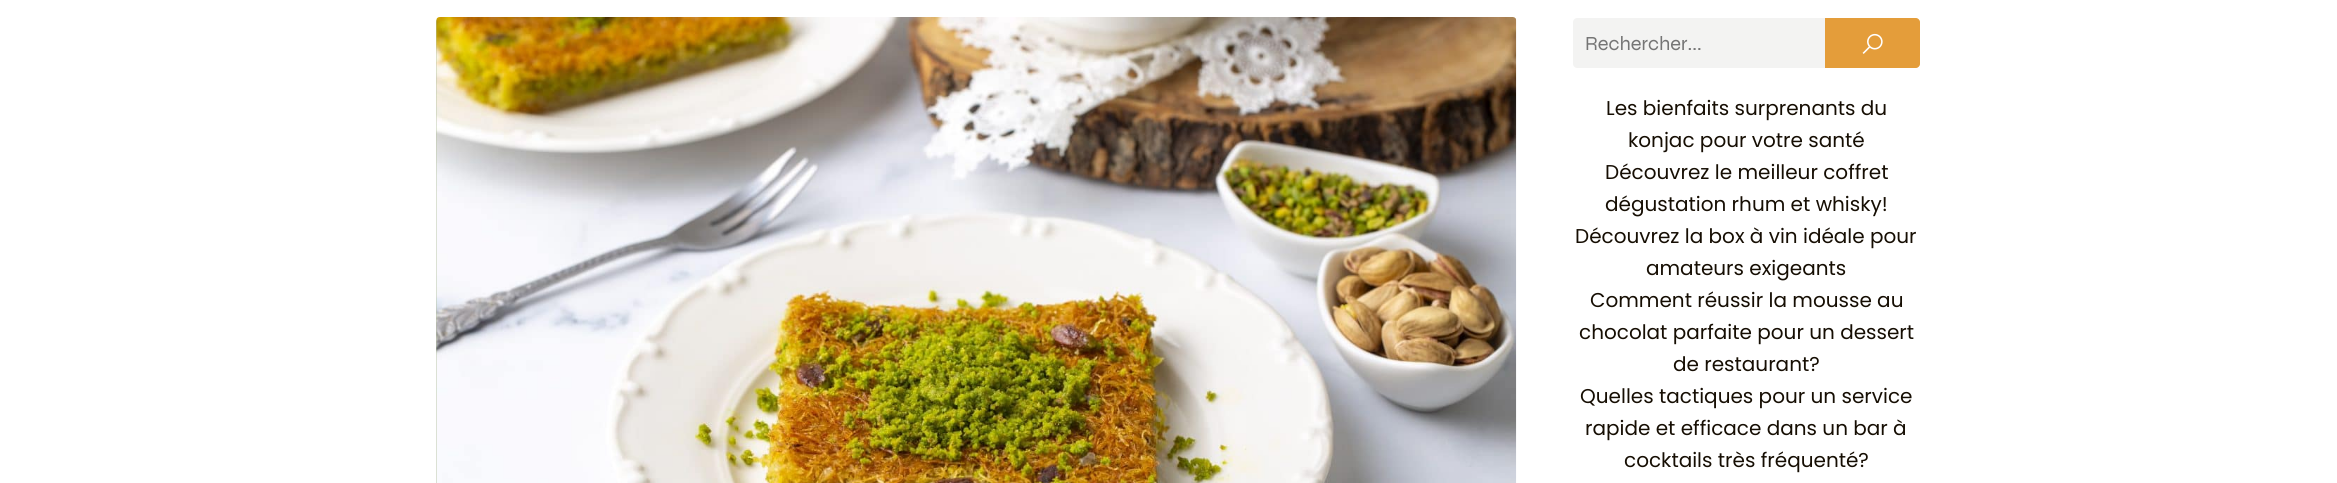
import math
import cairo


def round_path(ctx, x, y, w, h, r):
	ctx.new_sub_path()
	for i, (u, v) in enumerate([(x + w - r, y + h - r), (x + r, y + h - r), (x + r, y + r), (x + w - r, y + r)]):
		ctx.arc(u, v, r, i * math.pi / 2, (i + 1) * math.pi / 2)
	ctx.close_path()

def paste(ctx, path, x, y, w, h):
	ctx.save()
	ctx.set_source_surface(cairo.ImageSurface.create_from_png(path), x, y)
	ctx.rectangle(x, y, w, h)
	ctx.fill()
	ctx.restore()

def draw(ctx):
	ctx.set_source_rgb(1, 1, 1)
	ctx.paint()
	ctx.set_source_rgb(0.702, 0.757, 0.624)
	round_path(ctx, 436, 18, 1080, 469, 4)
	ctx.fill()
	paste(ctx, 'media/1.png', 436, 17, 1081, 466)
	ctx.set_source_rgb(0.953, 0.953, 0.949)
	ctx.new_path()
	ctx.move_to(1577, 18)
	ctx.line_to(1825, 18)
	ctx.line_to(1825, 68)
	ctx.line_to(1577, 68)
	ctx.curve_to(1575, 68, 1573, 66, 1573, 64)
	ctx.line_to(1573, 22)
	ctx.curve_to(1573, 20, 1575, 18, 1577, 18)
	ctx.close_path()
	ctx.fill()
	ctx.select_font_face('Syne')
	ctx.set_font_size(20)
	ctx.set_source_rgb(0.459, 0.459, 0.459)
	ctx.move_to(1585, 50)
	ctx.show_text('Rechercher...')
	ctx.set_source_rgb(0.894, 0.616, 0.227)
	ctx.new_path()
	ctx.move_to(1825, 18)
	ctx.line_to(1916, 18)
	ctx.curve_to(1918, 18, 1920, 20, 1920, 22)
	ctx.line_to(1920, 64)
	ctx.curve_to(1920, 66, 1918, 68, 1916, 68)
	ctx.line_to(1825, 68)
	ctx.close_path()
	ctx.fill()
	paste(ctx, 'media/2.png', 1862, 33, 21, 21)
	ctx.select_font_face('Poppins')
	ctx.set_source_rgb(0.086, 0.055, 0.012)
	for x, y, s in [
		(1606, 115, 'Les bienfaits surprenants du'),
		(1628, 147, 'konjac pour votre santé'),
		(1605, 179, 'Découvrez le meilleur coffret'),
		(1605, 211, 'dégustation rhum et whisky!'),
		(1575, 243, 'Découvrez la box à vin idéale pour'),
		(1646, 275, 'amateurs exigeants'),
		(1590, 307, 'Comment réussir la mousse au'),
		(1579, 339, 'chocolat parfaite pour un dessert'),
		(1673, 371, 'de restaurant?'),
		(1580, 403, 'Quelles tactiques pour un service'),
		(1585, 435, 'rapide et efficace dans un bar à'),
		(1624, 467, 'cocktails très fréquenté?'),
	]:
		ctx.move_to(x, y)
		ctx.show_text(s)


surface = cairo.ImageSurface(cairo.FORMAT_RGB24, 2337, 483)
ctx = cairo.Context(surface)
options = cairo.FontOptions()
options.set_hint_metrics(cairo.HINT_METRICS_OFF)
options.set_hint_style(cairo.HINT_STYLE_NONE)
ctx.set_font_options(options)
ctx.set_miter_limit(4)
draw(ctx)
surface.write_to_png('image.png')
